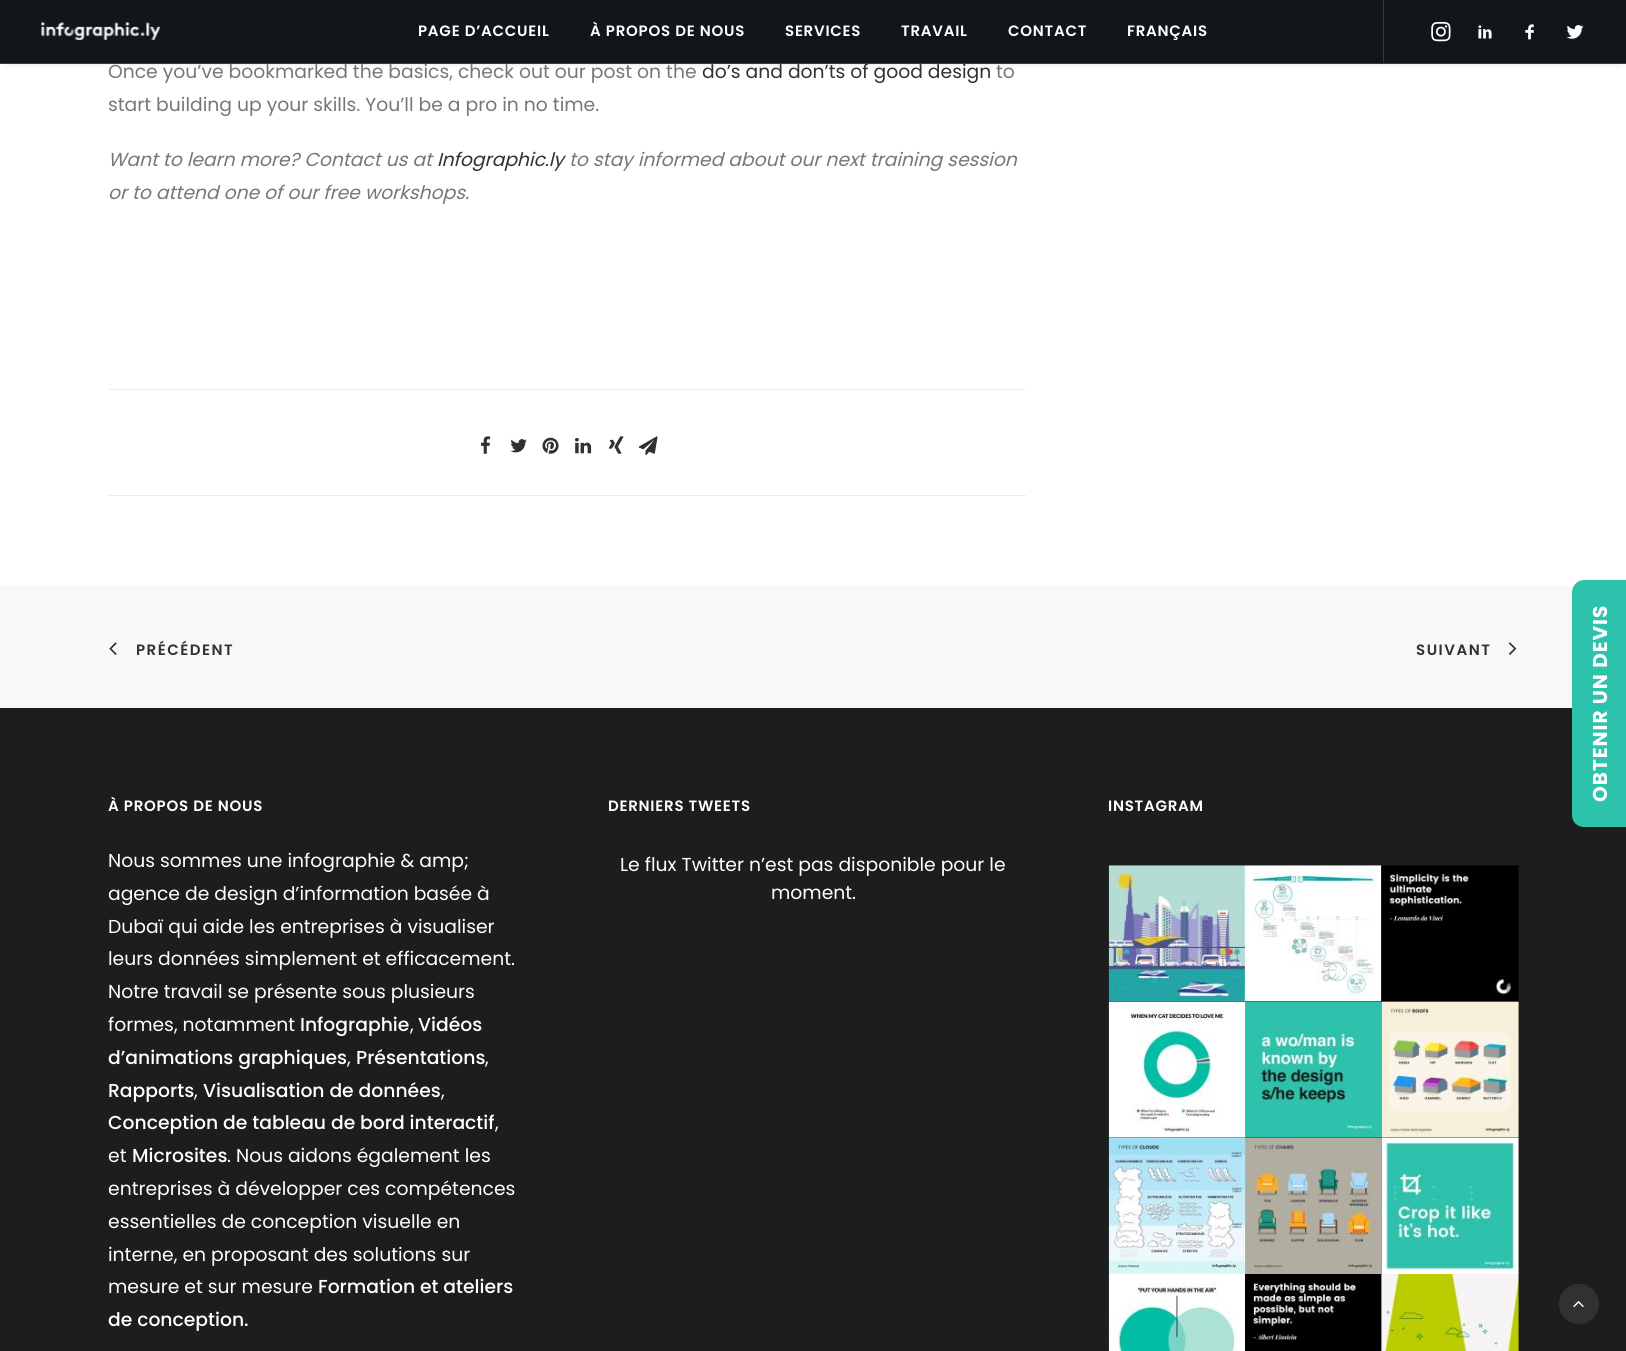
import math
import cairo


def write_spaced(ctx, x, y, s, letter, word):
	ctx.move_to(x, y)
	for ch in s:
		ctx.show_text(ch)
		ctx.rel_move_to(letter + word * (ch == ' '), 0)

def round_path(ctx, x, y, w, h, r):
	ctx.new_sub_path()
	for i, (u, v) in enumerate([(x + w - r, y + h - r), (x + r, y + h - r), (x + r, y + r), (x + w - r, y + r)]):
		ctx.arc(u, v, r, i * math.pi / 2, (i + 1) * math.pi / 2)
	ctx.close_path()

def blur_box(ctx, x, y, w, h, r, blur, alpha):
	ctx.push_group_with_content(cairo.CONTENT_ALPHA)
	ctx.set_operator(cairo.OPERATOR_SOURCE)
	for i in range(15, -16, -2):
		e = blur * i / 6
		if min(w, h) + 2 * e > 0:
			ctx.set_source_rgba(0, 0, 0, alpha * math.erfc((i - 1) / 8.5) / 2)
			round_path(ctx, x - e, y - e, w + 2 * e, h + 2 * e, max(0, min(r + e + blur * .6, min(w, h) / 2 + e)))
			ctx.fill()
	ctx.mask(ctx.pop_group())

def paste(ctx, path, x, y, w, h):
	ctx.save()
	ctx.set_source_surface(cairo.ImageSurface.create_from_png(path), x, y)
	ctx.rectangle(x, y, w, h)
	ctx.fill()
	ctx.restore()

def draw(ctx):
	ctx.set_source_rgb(1, 1, 1)
	ctx.paint()
	ctx.set_source_rgb(0, 0, 0)
	blur_box(ctx, 9, 18, 1610, 38, 0, 6, 0.6)
	ctx.set_source_rgb(0.078, 0.086, 0.094)
	ctx.rectangle(0, 0, 1626, 63)
	ctx.fill()
	ctx.select_font_face('Poppins')
	ctx.set_font_size(18.75)
	ctx.set_source_rgb(0.467, 0.467, 0.467)
	ctx.move_to(108, 78)
	ctx.show_text('Once you’ve bookmarked the basics, check out our post on the')
	ctx.set_source_rgb(0.188, 0.192, 0.2)
	ctx.move_to(702, 78)
	ctx.show_text('do’s and don’ts of good design')
	ctx.set_source_rgb(0.216, 0.224, 0.231)
	ctx.rectangle(0, 63, 1626, 1)
	ctx.fill()
	paste(ctx, 'media/1.png', 41, 22, 119, 18)
	ctx.select_font_face('Poppins SemiBold')
	ctx.set_font_size(15)
	ctx.set_source_rgb(1, 1, 1)
	for x, y, s in [
		(418, 36, 'PAGE D’ACCUEIL'),
		(590, 36, 'À PROPOS DE NOUS'),
		(785, 36, 'SERVICES'),
		(901, 36, 'TRAVAIL'),
		(1008, 36, 'CONTACT'),
		(1127, 36, 'FRANÇAIS'),
	]:
		write_spaced(ctx, x, y, s, 0.75, 0)
	ctx.set_source_rgb(0.216, 0.224, 0.231)
	ctx.rectangle(1383, 0, 1, 63)
	ctx.fill()
	paste(ctx, 'media/2.png', 1431, 21, 20, 21)
	paste(ctx, 'media/3.png', 1478, 25, 14, 14)
	paste(ctx, 'media/4.png', 1525, 24, 9, 16)
	paste(ctx, 'media/5.png', 1566, 25, 18, 14)
	ctx.select_font_face('Poppins')
	ctx.set_font_size(18.75)
	ctx.set_source_rgb(0.467, 0.467, 0.467)
	ctx.move_to(996, 78)
	ctx.show_text('to')
	ctx.move_to(108, 111)
	ctx.show_text('start building up your skills. You’ll be a pro in no time.')
	ctx.select_font_face('Poppins', cairo.FONT_SLANT_ITALIC)
	ctx.move_to(108, 166)
	ctx.show_text('Want to learn more? Contact us at')
	ctx.set_source_rgb(0.188, 0.192, 0.2)
	ctx.move_to(437, 166)
	ctx.show_text('Infographic.ly')
	ctx.set_source_rgb(0.467, 0.467, 0.467)
	ctx.move_to(569, 166)
	ctx.show_text('to stay informed about our next training session')
	ctx.move_to(108, 199)
	ctx.show_text('or to attend one of our free workshops.')
	ctx.set_source_rgb(0.918, 0.918, 0.918)
	ctx.rectangle(109, 389, 917, 1)
	ctx.fill()
	ctx.rectangle(109, 495, 917, 1)
	ctx.fill()
	paste(ctx, 'media/6.png', 481, 436, 10, 18)
	paste(ctx, 'media/7.png', 510, 439, 17, 14)
	paste(ctx, 'media/8.png', 542, 437, 17, 17)
	paste(ctx, 'media/9.png', 575, 437, 17, 17)
	paste(ctx, 'media/10.png', 608, 436, 16, 18)
	paste(ctx, 'media/11.png', 638, 436, 20, 20)
	ctx.set_source_rgb(0.969, 0.969, 0.969)
	ctx.rectangle(0, 586, 1574, 122)
	ctx.fill()
	paste(ctx, 'media/12.png', 109, 642, 8, 13)
	ctx.select_font_face('Poppins SemiBold')
	ctx.set_font_size(15)
	ctx.set_source_rgb(0.188, 0.192, 0.2)
	write_spaced(ctx, 136, 655, 'PRÉCÉDENT', 1.5, 0)
	write_spaced(ctx, 1416, 655, 'SUIVANT', 1.5, 0)
	paste(ctx, 'media/13.png', 1508, 642, 9, 13)
	ctx.set_source_rgb(0.106, 0.114, 0.122)
	ctx.rectangle(0, 708, 1626, 643)
	ctx.fill()
	ctx.set_source_rgb(0.176, 0.761, 0.675)
	ctx.new_path()
	ctx.move_to(1572, 815)
	ctx.line_to(1572, 593)
	ctx.curve_to(1572, 586, 1577, 580, 1584, 580)
	ctx.line_to(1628, 580)
	ctx.line_to(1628, 827)
	ctx.line_to(1584, 827)
	ctx.curve_to(1577, 827, 1572, 822, 1572, 815)
	ctx.close_path()
	ctx.fill()
	ctx.select_font_face('Poppins', cairo.FONT_SLANT_NORMAL, cairo.FONT_WEIGHT_BOLD)
	ctx.set_font_size(20)
	ctx.set_source_rgb(1, 1, 1)
	ctx.save()
	ctx.translate(1607, 802)
	ctx.rotate(-90 * math.pi / 180)
	write_spaced(ctx, 0, 0, 'OBTENIR UN DEVIS', 1, 0)
	ctx.restore()
	ctx.select_font_face('Poppins SemiBold')
	ctx.set_font_size(15)
	write_spaced(ctx, 108, 811, 'À PROPOS DE NOUS', 0.75, 0)
	ctx.select_font_face('Poppins')
	ctx.set_font_size(18.75)
	for x, y, s in [
		(108, 867, 'Nous sommes une infographie & amp;'),
		(108, 900, 'agence de design d’information basée à'),
		(108, 933, 'Dubaï qui aide les entreprises à visualiser'),
		(108, 965, 'leurs données simplement et efficacement.'),
		(108, 998, 'Notre travail se présente sous plusieurs'),
		(108, 1031, 'formes, notamment'),
	]:
		ctx.move_to(x, y)
		ctx.show_text(s)
	ctx.select_font_face('Poppins Medium')
	ctx.move_to(300, 1031)
	ctx.show_text('Infographie')
	ctx.select_font_face('Poppins')
	ctx.move_to(410, 1031)
	ctx.show_text(',')
	ctx.select_font_face('Poppins Medium')
	ctx.move_to(418, 1031)
	ctx.show_text('Vidéos')
	ctx.move_to(108, 1064)
	ctx.show_text('d’animations graphiques')
	ctx.select_font_face('Poppins')
	ctx.move_to(347, 1064)
	ctx.show_text(',')
	ctx.select_font_face('Poppins Medium')
	ctx.move_to(356, 1064)
	ctx.show_text('Présentations')
	ctx.select_font_face('Poppins')
	ctx.move_to(485, 1064)
	ctx.show_text(',')
	ctx.select_font_face('Poppins Medium')
	ctx.move_to(108, 1097)
	ctx.show_text('Rapports')
	ctx.select_font_face('Poppins')
	ctx.move_to(194, 1097)
	ctx.show_text(',')
	ctx.select_font_face('Poppins Medium')
	ctx.move_to(203, 1097)
	ctx.show_text('Visualisation de données')
	ctx.select_font_face('Poppins')
	ctx.move_to(441, 1097)
	ctx.show_text(',')
	ctx.select_font_face('Poppins Medium')
	ctx.move_to(108, 1129)
	ctx.show_text('Conception de tableau de bord interactif')
	ctx.select_font_face('Poppins')
	ctx.move_to(495, 1129)
	ctx.show_text(',')
	ctx.move_to(108, 1162)
	ctx.show_text('et')
	ctx.select_font_face('Poppins Medium')
	ctx.move_to(132, 1162)
	ctx.show_text('Microsites')
	ctx.select_font_face('Poppins')
	for x, y, s in [
		(227, 1162, '. Nous aidons également les'),
		(108, 1195, 'entreprises à développer ces compétences'),
		(108, 1228, 'essentielles de conception visuelle en'),
		(108, 1261, 'interne, en proposant des solutions sur'),
		(108, 1293, 'mesure et sur mesure'),
	]:
		ctx.move_to(x, y)
		ctx.show_text(s)
	ctx.select_font_face('Poppins Medium')
	ctx.move_to(318, 1293)
	ctx.show_text('Formation et ateliers')
	ctx.move_to(108, 1326)
	ctx.show_text('de conception.')
	ctx.select_font_face('Poppins SemiBold')
	ctx.set_font_size(15)
	write_spaced(ctx, 608, 811, 'DERNIERS TWEETS', 0.75, 0)
	ctx.select_font_face('Poppins')
	ctx.set_font_size(18.75)
	ctx.move_to(620, 871)
	ctx.show_text('Le flux Twitter n’est pas disponible pour le')
	ctx.move_to(771, 899)
	ctx.show_text('moment.')
	ctx.select_font_face('Poppins SemiBold')
	ctx.set_font_size(15)
	write_spaced(ctx, 1108, 811, 'INSTAGRAM', 0.75, 0)
	paste(ctx, 'media/14.png', 1108, 865, 137, 137)
	paste(ctx, 'media/15.png', 1245, 865, 137, 137)
	paste(ctx, 'media/16.png', 1381, 865, 138, 137)
	paste(ctx, 'media/17.png', 1108, 1001, 137, 137)
	paste(ctx, 'media/18.png', 1245, 1001, 137, 137)
	paste(ctx, 'media/19.png', 1381, 1001, 138, 137)
	paste(ctx, 'media/20.png', 1108, 1137, 137, 137)
	paste(ctx, 'media/21.png', 1245, 1137, 137, 137)
	paste(ctx, 'media/22.png', 1381, 1137, 138, 137)
	paste(ctx, 'media/23.png', 1108, 1274, 137, 77)
	paste(ctx, 'media/24.png', 1245, 1274, 136, 77)
	paste(ctx, 'media/25.png', 1381, 1274, 138, 77)
	ctx.set_source_rgb(0.188, 0.192, 0.2)
	ctx.arc(1579, 1304, 19.5, 0, 2 * math.pi)
	ctx.fill_preserve()
	ctx.set_line_width(1)
	ctx.stroke()
	paste(ctx, 'media/26.png', 1573, 1301, 11, 7)


surface = cairo.ImageSurface(cairo.FORMAT_RGB24, 1626, 1351)
ctx = cairo.Context(surface)
options = cairo.FontOptions()
options.set_hint_metrics(cairo.HINT_METRICS_OFF)
options.set_hint_style(cairo.HINT_STYLE_NONE)
ctx.set_font_options(options)
ctx.set_miter_limit(4)
draw(ctx)
surface.write_to_png('image.png')
